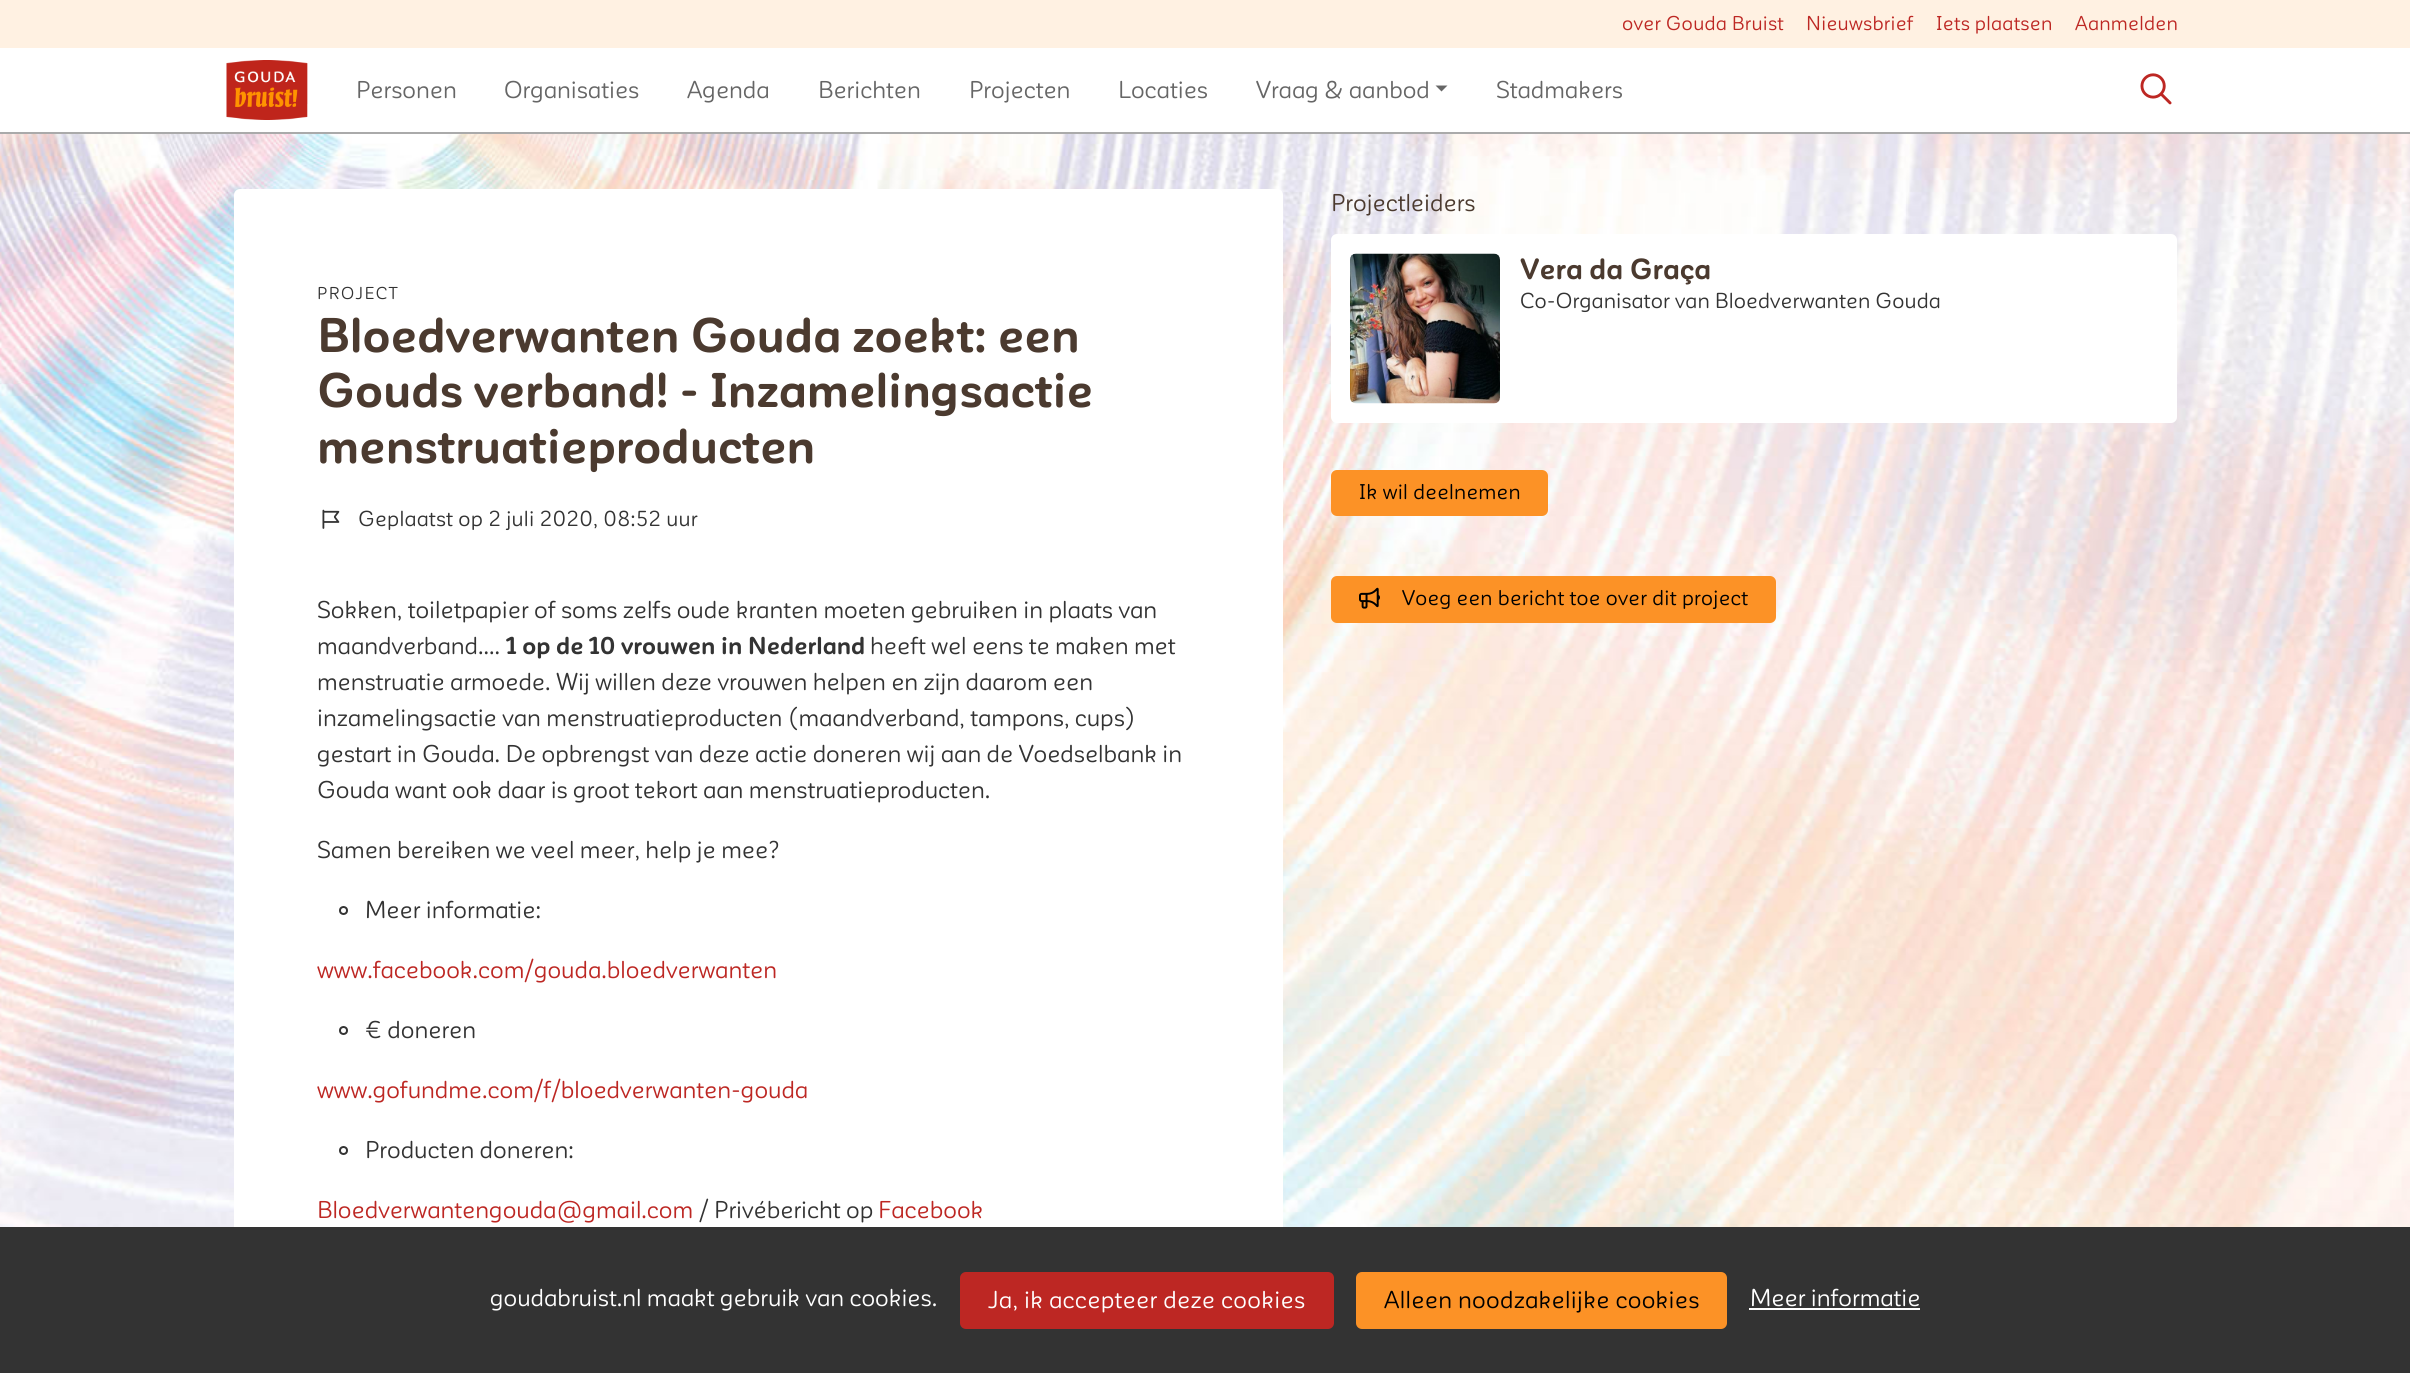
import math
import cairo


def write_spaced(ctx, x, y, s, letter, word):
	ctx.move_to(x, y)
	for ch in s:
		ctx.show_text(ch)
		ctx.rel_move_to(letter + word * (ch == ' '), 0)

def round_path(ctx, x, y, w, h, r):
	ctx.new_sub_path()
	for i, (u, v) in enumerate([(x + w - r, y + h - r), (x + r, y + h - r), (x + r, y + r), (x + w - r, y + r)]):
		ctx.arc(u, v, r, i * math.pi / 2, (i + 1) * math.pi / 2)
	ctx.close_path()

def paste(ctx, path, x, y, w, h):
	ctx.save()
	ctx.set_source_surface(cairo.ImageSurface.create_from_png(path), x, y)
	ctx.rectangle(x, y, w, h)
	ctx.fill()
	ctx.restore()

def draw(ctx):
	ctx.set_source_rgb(1, 1, 1)
	ctx.paint()
	paste(ctx, 'media/1.png', 0, 134, 2410, 1093)
	ctx.set_source_rgb(1, 0.945, 0.886)
	ctx.rectangle(0, 0, 2410, 48)
	ctx.fill()
	ctx.select_font_face('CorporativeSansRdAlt')
	ctx.set_font_size(19.75)
	ctx.set_source_rgb(0.741, 0.153, 0.137)
	for x, y, s in [
		(1622, 30, 'over Gouda Bruist'),
		(1806, 30, 'Nieuwsbrief'),
		(1936, 30, 'Iets plaatsen'),
		(2075, 30, 'Aanmelden'),
	]:
		write_spaced(ctx, x, y, s, 0.3, 0)
	ctx.set_source_rgb(0.667, 0.667, 0.667)
	ctx.rectangle(0, 132, 2410, 2)
	ctx.fill()
	paste(ctx, 'media/2.png', 226, 60, 82, 60)
	ctx.set_font_size(24)
	ctx.set_source_rgb(0.4, 0.4, 0.4)
	for x, y, s in [
		(356, 98, 'Personen'),
		(504, 98, 'Organisaties'),
		(687, 98, 'Agenda'),
		(818, 98, 'Berichten'),
		(969, 98, 'Projecten'),
		(1118, 98, 'Locaties'),
		(1256, 98, 'Vraag & aanbod'),
	]:
		ctx.move_to(x, y)
		ctx.show_text(s)
	ctx.new_path()
	ctx.move_to(1435.5, 85.5)
	ctx.line_to(1447.5, 85.5)
	ctx.line_to(1441.5, 91.5)
	ctx.close_path()
	ctx.fill()
	ctx.move_to(1496, 98)
	ctx.show_text('Stadmakers')
	paste(ctx, 'media/3.png', 2140, 73, 32, 32)
	ctx.set_source_rgb(1, 1, 1)
	round_path(ctx, 234, 189, 1049, 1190, 6)
	ctx.fill()
	ctx.set_font_size(17)
	ctx.set_source_rgb(0.2, 0.2, 0.2)
	write_spaced(ctx, 317, 299, 'PROJECT', 1.5, 0)
	ctx.select_font_face('CorporativeSansRdAlt', cairo.FONT_SLANT_NORMAL, cairo.FONT_WEIGHT_BOLD)
	ctx.set_font_size(48)
	ctx.set_source_rgb(0.294, 0.227, 0.184)
	for x, y, s in [
		(317, 352, 'Bloedverwanten Gouda zoekt: een'),
		(317, 407, 'Gouds verband! - Inzamelingsactie'),
		(317, 463, 'menstruatieproducten'),
	]:
		ctx.move_to(x, y)
		ctx.show_text(s)
	paste(ctx, 'media/4.png', 322, 509, 18, 20)
	ctx.select_font_face('CorporativeSansRdAlt')
	ctx.set_font_size(21.4)
	ctx.set_source_rgb(0.2, 0.2, 0.2)
	write_spaced(ctx, 358, 526, 'Geplaatst op 2 juli 2020, 08:52 uur', 0.25, 0)
	ctx.set_font_size(24)
	ctx.move_to(317, 618)
	ctx.show_text('Sokken, toiletpapier of soms zelfs oude kranten moeten gebruiken in plaats van')
	ctx.move_to(317, 654)
	ctx.show_text('maandverband....')
	ctx.select_font_face('CorporativeSansRdAlt', cairo.FONT_SLANT_NORMAL, cairo.FONT_WEIGHT_BOLD)
	ctx.move_to(506, 654)
	ctx.show_text('1 op de 10 vrouwen in Nederland')
	ctx.select_font_face('CorporativeSansRdAlt')
	for x, y, s in [
		(870, 654, 'heeft wel eens te maken met'),
		(317, 690, 'menstruatie armoede. Wij willen deze vrouwen helpen en zijn daarom een'),
		(317, 726, 'inzamelingsactie van menstruatieproducten (maandverband, tampons, cups)'),
		(317, 762, 'gestart in Gouda. De opbrengst van deze actie doneren wij aan de Voedselbank in'),
		(317, 798, 'Gouda want ook daar is groot tekort aan menstruatieproducten.'),
		(317, 858, 'Samen bereiken we veel meer, help je mee?'),
	]:
		ctx.move_to(x, y)
		ctx.show_text(s)
	ctx.new_path()
	ctx.arc(343.5, 910.5, 3.5, 0, 2 * math.pi)
	ctx.stroke()
	ctx.move_to(365, 918)
	ctx.show_text('Meer informatie:')
	ctx.set_source_rgb(0.741, 0.153, 0.137)
	ctx.move_to(317, 978)
	ctx.show_text('www.facebook.com/gouda.bloedverwanten')
	ctx.new_path()
	ctx.arc(343.5, 1030.5, 3.5, 0, 2 * math.pi)
	ctx.set_source_rgb(0.2, 0.2, 0.2)
	ctx.stroke()
	ctx.move_to(365, 1038)
	ctx.show_text('€ doneren')
	ctx.set_source_rgb(0.741, 0.153, 0.137)
	ctx.move_to(317, 1098)
	ctx.show_text('www.gofundme.com/f/bloedverwanten-gouda')
	ctx.new_path()
	ctx.arc(343.5, 1150.5, 3.5, 0, 2 * math.pi)
	ctx.set_source_rgb(0.2, 0.2, 0.2)
	ctx.stroke()
	ctx.move_to(365, 1158)
	ctx.show_text('Producten doneren:')
	ctx.set_source_rgb(0.741, 0.153, 0.137)
	ctx.move_to(317, 1218)
	ctx.show_text('Bloedverwantengouda@gmail.com')
	ctx.set_source_rgb(0.2, 0.2, 0.2)
	ctx.move_to(699, 1218)
	ctx.show_text('/ Privébericht op')
	ctx.set_source_rgb(0.741, 0.153, 0.137)
	ctx.move_to(878, 1218)
	ctx.show_text('Facebook')
	ctx.set_source_rgb(0.294, 0.227, 0.184)
	ctx.move_to(1331, 211)
	ctx.show_text('Projectleiders')
	ctx.set_source_rgb(1, 1, 1)
	round_path(ctx, 1331, 234, 846, 189, 6)
	ctx.fill()
	paste(ctx, 'media/5.png', 1350, 253, 150, 151)
	ctx.select_font_face('CorporativeSansRdAlt', cairo.FONT_SLANT_NORMAL, cairo.FONT_WEIGHT_BOLD)
	ctx.set_font_size(28.75)
	ctx.set_source_rgb(0.294, 0.227, 0.184)
	ctx.move_to(1520, 279)
	ctx.show_text('Vera da Graça')
	ctx.select_font_face('CorporativeSansRdAlt')
	ctx.set_font_size(21.4)
	ctx.set_source_rgb(0.2, 0.2, 0.2)
	write_spaced(ctx, 1520, 308, 'Co-Organisator van Bloedverwanten Gouda', 0.15, 0)
	ctx.set_source_rgb(0.988, 0.573, 0.149)
	round_path(ctx, 1332, 471, 215, 44, 5)
	ctx.fill_preserve()
	ctx.stroke()
	ctx.set_font_size(21)
	ctx.set_source_rgb(0, 0, 0)
	write_spaced(ctx, 1359, 499, 'Ik wil deelnemen', 0.3, 0)
	ctx.set_source_rgb(0.988, 0.573, 0.149)
	round_path(ctx, 1332, 577, 443, 45, 5)
	ctx.fill_preserve()
	ctx.stroke()
	paste(ctx, 'media/6.png', 1359, 587, 21, 22)
	ctx.set_source_rgb(0, 0, 0)
	write_spaced(ctx, 1402, 605, 'Voeg een bericht toe over dit project', 0.3, 0)
	ctx.set_source_rgb(0.2, 0.2, 0.2)
	ctx.rectangle(0, 1227, 2410, 146)
	ctx.fill()
	ctx.set_font_size(24)
	ctx.set_source_rgb(1, 1, 1)
	ctx.move_to(490, 1306)
	ctx.show_text('goudabruist.nl maakt gebruik van cookies.')
	ctx.set_source_rgb(0.741, 0.153, 0.137)
	round_path(ctx, 961, 1273, 372, 55, 5)
	ctx.fill_preserve()
	ctx.stroke()
	ctx.set_source_rgb(1, 1, 1)
	write_spaced(ctx, 988, 1308, 'Ja, ik accepteer deze cookies', 0.3, 0)
	ctx.set_source_rgb(0.988, 0.573, 0.149)
	round_path(ctx, 1357, 1273, 369, 55, 5)
	ctx.fill_preserve()
	ctx.stroke()
	ctx.set_source_rgb(0, 0, 0)
	write_spaced(ctx, 1384, 1308, 'Alleen noodzakelijke cookies', 0.3, 0)
	ctx.set_source_rgb(1, 1, 1)
	ctx.move_to(1750, 1306)
	ctx.show_text('Meer informatie')
	ctx.rectangle(1749, 1308, 171, 2)
	ctx.fill()


surface = cairo.ImageSurface(cairo.FORMAT_RGB24, 2410, 1373)
ctx = cairo.Context(surface)
options = cairo.FontOptions()
options.set_hint_metrics(cairo.HINT_METRICS_OFF)
options.set_hint_style(cairo.HINT_STYLE_NONE)
ctx.set_font_options(options)
ctx.set_miter_limit(4)
draw(ctx)
surface.write_to_png('image.png')
